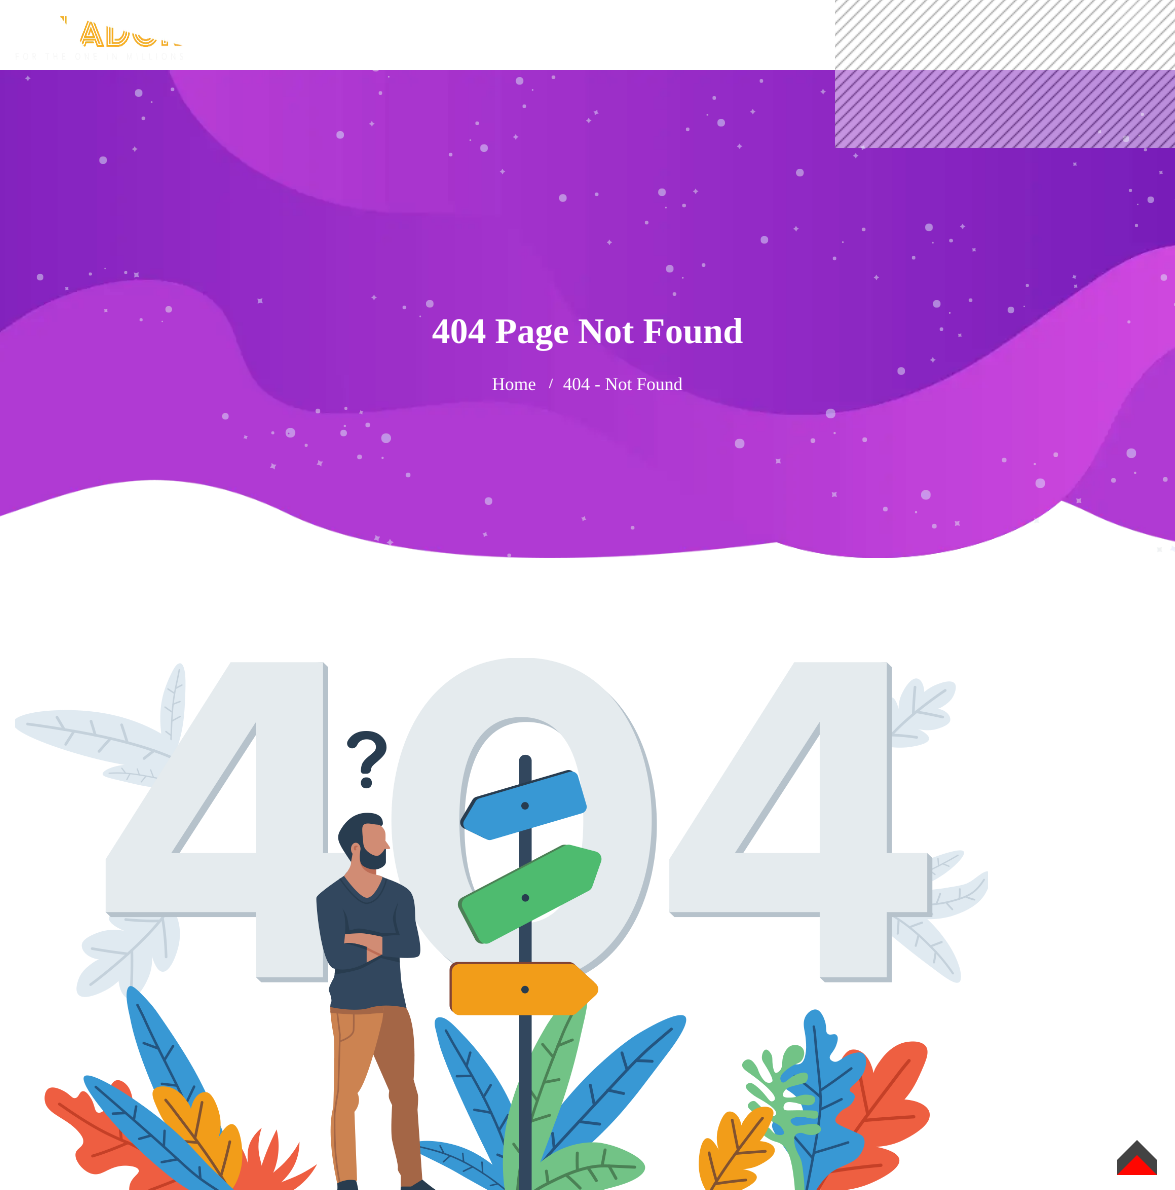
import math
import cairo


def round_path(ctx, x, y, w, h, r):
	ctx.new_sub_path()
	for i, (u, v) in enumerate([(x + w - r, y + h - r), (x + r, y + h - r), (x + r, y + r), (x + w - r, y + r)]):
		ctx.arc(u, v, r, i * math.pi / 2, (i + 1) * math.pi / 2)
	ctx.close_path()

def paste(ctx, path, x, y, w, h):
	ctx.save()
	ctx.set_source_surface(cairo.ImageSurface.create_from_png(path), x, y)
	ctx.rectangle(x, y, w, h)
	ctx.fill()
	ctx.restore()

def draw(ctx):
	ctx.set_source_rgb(1, 1, 1)
	ctx.paint()
	paste(ctx, 'media/1.png', 15, 16, 168, 44)
	paste(ctx, 'media/3.png', 0, 70, 1175, 488)
	paste(ctx, 'media/4.png', 25, 70, 1150, 487)
	paste(ctx, 'media/2.png', 835, 0, 340, 148)
	ctx.set_source_rgba(1, 1, 1, 0.15)
	round_path(ctx, 1115, 0, 45, 41, 20.5)
	ctx.fill()
	ctx.select_font_face('Liberation Serif', cairo.FONT_SLANT_NORMAL, cairo.FONT_WEIGHT_BOLD)
	ctx.set_font_size(36)
	ctx.set_source_rgb(1, 1, 1)
	ctx.move_to(432, 343)
	ctx.show_text('404 Page Not Found')
	ctx.select_font_face('Liberation Serif')
	ctx.set_font_size(18)
	ctx.move_to(492, 390)
	ctx.show_text('Home')
	ctx.select_font_face('Liberation Serif', cairo.FONT_SLANT_NORMAL, cairo.FONT_WEIGHT_BOLD)
	ctx.set_font_size(14)
	ctx.move_to(549, 388)
	ctx.show_text('/')
	ctx.select_font_face('Liberation Serif')
	ctx.set_font_size(18)
	ctx.move_to(563, 390)
	ctx.show_text('404 - Not Found')
	paste(ctx, 'media/5.png', 15, 658, 973, 532)
	ctx.set_source_rgb(0.263, 0.263, 0.263)
	ctx.rectangle(1117, 1160, 40, 15)
	ctx.fill()
	ctx.new_path()
	ctx.move_to(1157, 1160)
	ctx.line_to(1117, 1160)
	ctx.line_to(1137, 1140)
	ctx.close_path()
	ctx.fill()
	ctx.set_source_rgb(1, 0.027, 0)
	ctx.new_path()
	ctx.move_to(1157, 1175)
	ctx.line_to(1117, 1175)
	ctx.line_to(1137, 1155)
	ctx.close_path()
	ctx.fill()


surface = cairo.ImageSurface(cairo.FORMAT_RGB24, 1175, 1190)
ctx = cairo.Context(surface)
options = cairo.FontOptions()
options.set_hint_metrics(cairo.HINT_METRICS_OFF)
options.set_hint_style(cairo.HINT_STYLE_NONE)
ctx.set_font_options(options)
ctx.set_miter_limit(4)
draw(ctx)
surface.write_to_png('image.png')
